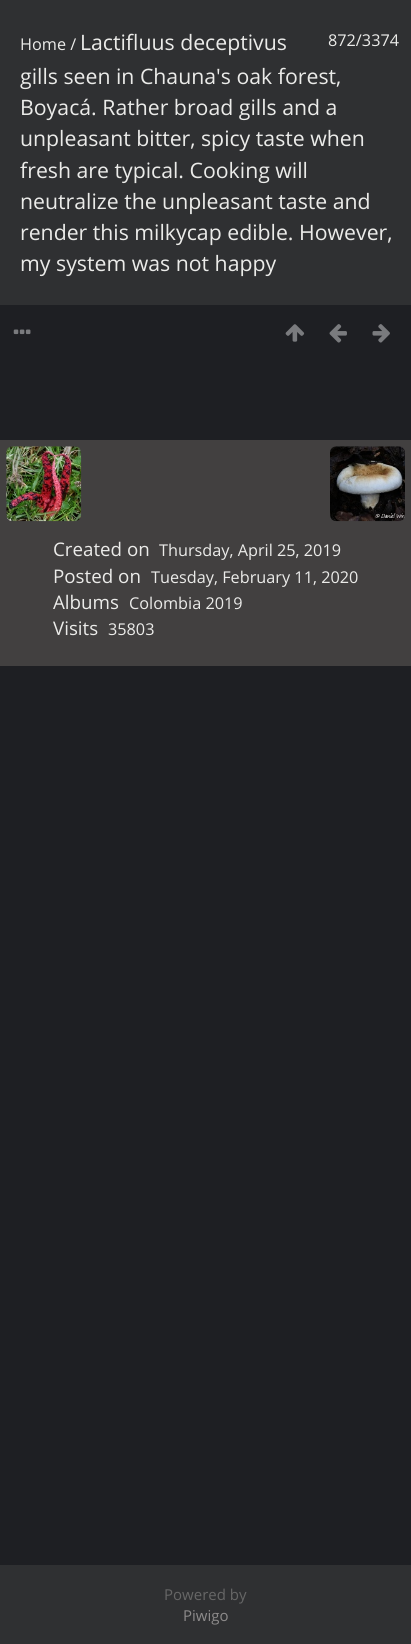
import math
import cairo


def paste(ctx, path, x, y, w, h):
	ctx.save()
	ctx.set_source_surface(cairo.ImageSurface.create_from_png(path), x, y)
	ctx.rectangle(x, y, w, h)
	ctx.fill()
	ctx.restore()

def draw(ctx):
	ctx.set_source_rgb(0.118, 0.122, 0.137)
	ctx.paint()
	ctx.set_source_rgb(0.184, 0.188, 0.196)
	ctx.rectangle(0, 0, 411, 305)
	ctx.fill()
	ctx.select_font_face('Open Sans')
	ctx.set_font_size(16.25)
	ctx.set_source_rgb(0.918, 0.918, 0.914)
	ctx.move_to(20, 50)
	ctx.show_text('Home /')
	ctx.set_font_size(21.25)
	for x, y, s in [
		(80, 50, 'Lactifluus deceptivus'),
		(20, 84, 'gills seen in Chauna\'s oak forest,'),
		(20, 115, 'Boyacá. Rather broad gills and a'),
		(20, 146, 'unpleasant bitter, spicy taste when'),
		(20, 178, 'fresh are typical. Cooking will'),
		(20, 209, 'neutralize the unpleasant taste and'),
		(20, 240, 'render this milkycap edible. However,'),
		(20, 271, 'my system was not happy'),
	]:
		ctx.move_to(x, y)
		ctx.show_text(s)
	ctx.set_font_size(16.25)
	ctx.move_to(328, 46)
	ctx.show_text('872/3374')
	paste(ctx, 'media/1.png', 13, 329, 18, 6)
	paste(ctx, 'media/2.png', 285, 324, 20, 18)
	paste(ctx, 'media/3.png', 329, 324, 18, 19)
	paste(ctx, 'media/4.png', 372, 324, 18, 19)
	ctx.set_source_rgb(0.259, 0.251, 0.251)
	ctx.rectangle(0, 440, 411, 226)
	ctx.fill()
	paste(ctx, 'media/5.png', 6, 446, 76, 76)
	paste(ctx, 'media/6.png', 330, 446, 75, 76)
	ctx.set_font_size(18.75)
	ctx.set_source_rgb(0.918, 0.918, 0.914)
	ctx.move_to(53, 556)
	ctx.show_text('Created on')
	ctx.set_font_size(16.25)
	ctx.move_to(159, 556)
	ctx.show_text('Thursday, April 25, 2019')
	ctx.set_font_size(18.75)
	ctx.move_to(53, 583)
	ctx.show_text('Posted on')
	ctx.set_font_size(16.25)
	ctx.move_to(151, 583)
	ctx.show_text('Tuesday, February 11, 2020')
	ctx.set_font_size(18.75)
	ctx.move_to(53, 609)
	ctx.show_text('Albums')
	ctx.set_font_size(16.25)
	ctx.move_to(129, 609)
	ctx.show_text('Colombia 2019')
	ctx.set_font_size(18.75)
	ctx.move_to(53, 635)
	ctx.show_text('Visits')
	ctx.set_font_size(16.25)
	ctx.move_to(108, 635)
	ctx.show_text('35803')
	ctx.set_source_rgb(0.184, 0.188, 0.196)
	ctx.rectangle(0, 1565, 411, 79)
	ctx.fill()
	ctx.set_font_size(15)
	ctx.set_source_rgb(0.4, 0.4, 0.4)
	ctx.move_to(164, 1600)
	ctx.show_text('Powered by')
	ctx.set_source_rgb(0.553, 0.545, 0.545)
	ctx.move_to(183, 1621)
	ctx.show_text('Piwigo')


surface = cairo.ImageSurface(cairo.FORMAT_RGB24, 411, 1644)
ctx = cairo.Context(surface)
options = cairo.FontOptions()
options.set_hint_metrics(cairo.HINT_METRICS_OFF)
options.set_hint_style(cairo.HINT_STYLE_NONE)
ctx.set_font_options(options)
ctx.set_miter_limit(4)
draw(ctx)
surface.write_to_png('image.png')
